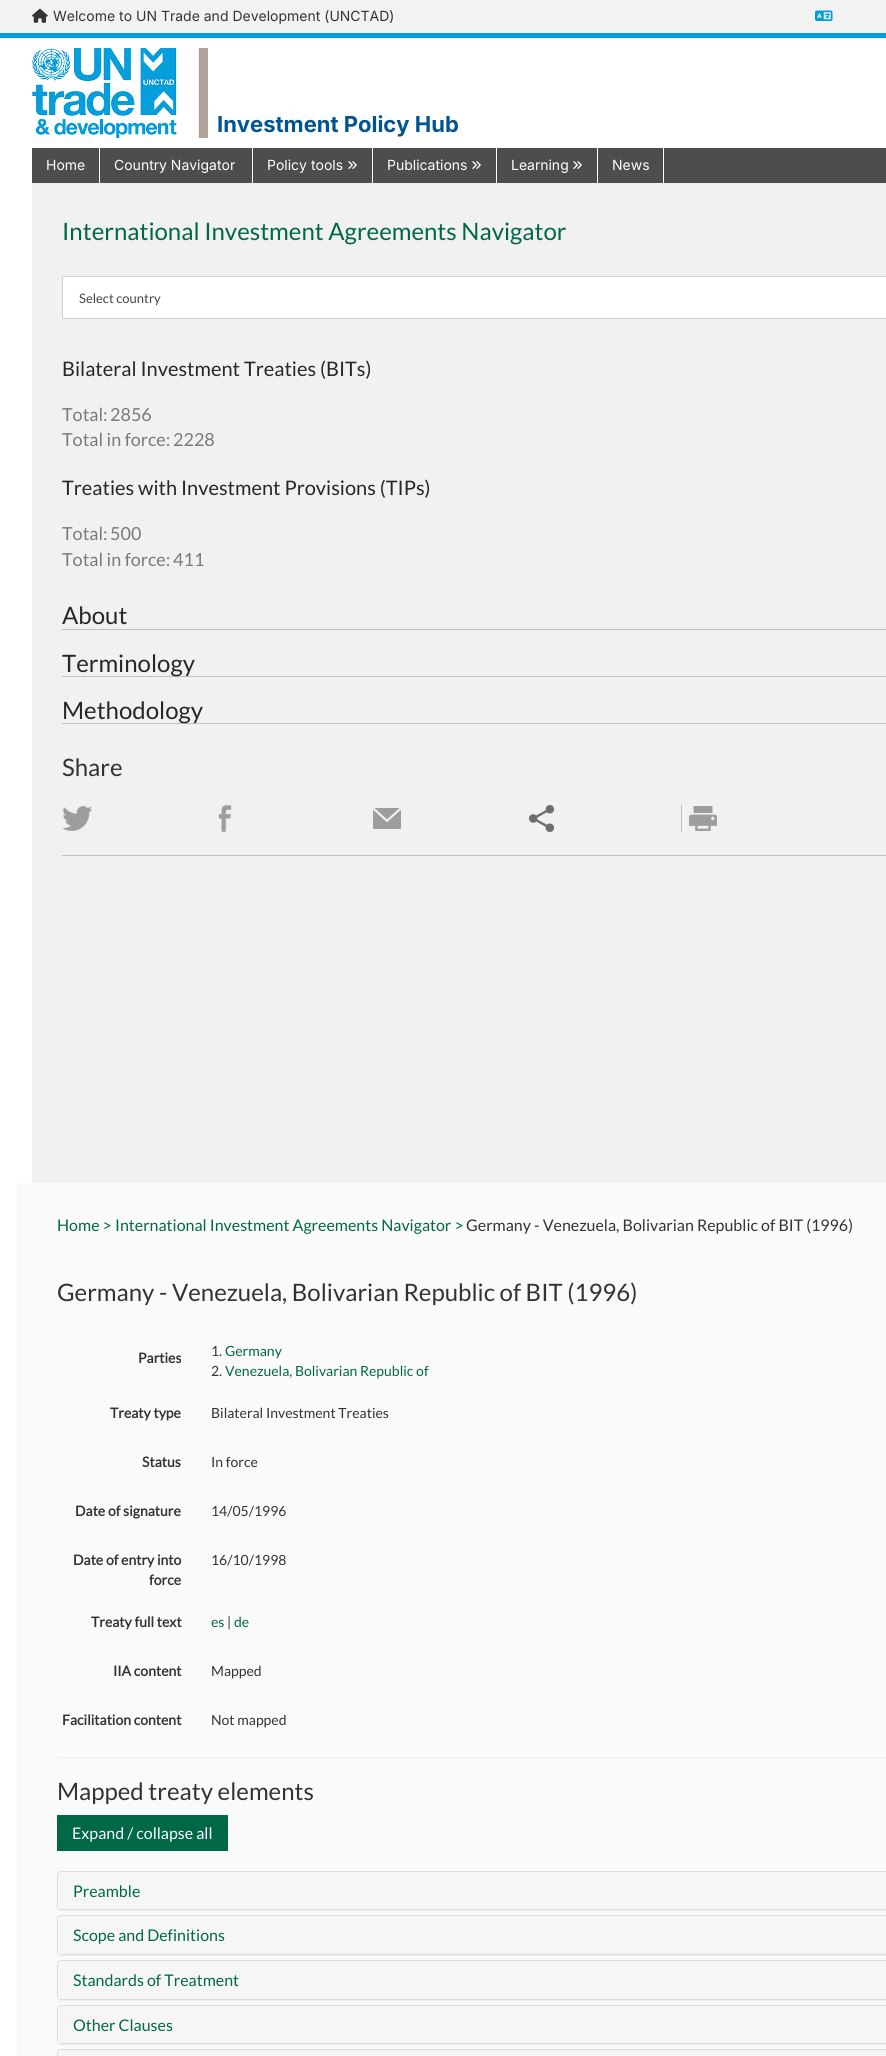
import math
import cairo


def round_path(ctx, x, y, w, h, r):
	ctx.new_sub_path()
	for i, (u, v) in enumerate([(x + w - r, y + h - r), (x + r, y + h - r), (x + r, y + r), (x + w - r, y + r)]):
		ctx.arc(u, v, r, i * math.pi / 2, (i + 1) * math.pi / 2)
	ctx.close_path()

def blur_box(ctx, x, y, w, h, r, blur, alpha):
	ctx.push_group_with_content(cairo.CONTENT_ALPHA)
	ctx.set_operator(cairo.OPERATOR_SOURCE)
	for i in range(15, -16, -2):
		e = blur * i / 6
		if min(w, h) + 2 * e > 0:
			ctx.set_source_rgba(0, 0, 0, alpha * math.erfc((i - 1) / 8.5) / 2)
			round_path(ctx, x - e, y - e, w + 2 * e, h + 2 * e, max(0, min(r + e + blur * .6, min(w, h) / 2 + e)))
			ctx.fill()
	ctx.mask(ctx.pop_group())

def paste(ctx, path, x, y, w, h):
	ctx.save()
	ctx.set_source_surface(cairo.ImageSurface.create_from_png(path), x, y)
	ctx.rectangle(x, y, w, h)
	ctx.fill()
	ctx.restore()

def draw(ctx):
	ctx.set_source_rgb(1, 1, 1)
	ctx.paint()
	ctx.set_source_rgb(0.949, 0.949, 0.949)
	ctx.rectangle(0, 0, 886, 33)
	ctx.fill()
	ctx.set_source_rgb(0, 0.62, 0.859)
	ctx.rectangle(0, 33, 886, 5)
	ctx.fill()
	paste(ctx, 'media/1.png', 32, 8, 16, 15)
	ctx.select_font_face('Inter')
	ctx.set_font_size(14)
	ctx.set_source_rgb(0.2, 0.2, 0.2)
	ctx.move_to(53, 21)
	ctx.show_text('Welcome to UN Trade and Development (UNCTAD)')
	paste(ctx, 'media/2.png', 815, 10, 18, 11)
	paste(ctx, 'media/3.png', 32, 48, 176, 90)
	ctx.select_font_face('Inter', cairo.FONT_SLANT_NORMAL, cairo.FONT_WEIGHT_BOLD)
	ctx.set_font_size(22)
	ctx.set_source_rgb(0, 0.329, 0.573)
	ctx.move_to(217, 132)
	ctx.show_text('Investment Policy Hub')
	ctx.set_source_rgb(0.302, 0.302, 0.302)
	ctx.rectangle(32, 148, 854, 35)
	ctx.fill()
	ctx.set_source_rgb(1, 1, 1)
	ctx.rectangle(99, 148, 1, 35)
	ctx.fill()
	ctx.select_font_face('Inter')
	ctx.set_font_size(14)
	ctx.move_to(46, 170)
	ctx.show_text('Home')
	ctx.rectangle(252, 148, 1, 35)
	ctx.fill()
	ctx.move_to(114, 170)
	ctx.show_text('Country Navigator')
	ctx.rectangle(372, 148, 1, 35)
	ctx.fill()
	ctx.move_to(267, 170)
	ctx.show_text('Policy tools')
	paste(ctx, 'media/4.png', 348, 161, 9, 8)
	ctx.rectangle(496, 148, 1, 35)
	ctx.fill()
	ctx.move_to(387, 170)
	ctx.show_text('Publications')
	paste(ctx, 'media/4.png', 472, 161, 9, 8)
	ctx.rectangle(597, 148, 1, 35)
	ctx.fill()
	ctx.move_to(511, 170)
	ctx.show_text('Learning')
	paste(ctx, 'media/4.png', 573, 161, 9, 8)
	ctx.rectangle(663, 148, 1, 35)
	ctx.fill()
	ctx.move_to(612, 170)
	ctx.show_text('News')
	ctx.set_source_rgb(0.945, 0.945, 0.945)
	ctx.rectangle(32, 183, 854, 1000)
	ctx.fill()
	ctx.select_font_face('Lato')
	ctx.set_font_size(24)
	ctx.set_source_rgb(0, 0.404, 0.278)
	ctx.move_to(62, 240)
	ctx.show_text('International Investment Agreements Navigator')
	ctx.set_source_rgb(1, 1, 1)
	ctx.rectangle(62.5, 276.5, 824, 42)
	ctx.fill_preserve()
	ctx.set_source_rgb(0.82, 0.82, 0.82)
	ctx.set_line_width(1)
	ctx.stroke()
	ctx.set_font_size(13)
	ctx.set_source_rgb(0.267, 0.267, 0.267)
	ctx.move_to(79, 303)
	ctx.show_text('Select country')
	ctx.set_font_size(20)
	ctx.set_source_rgb(0.153, 0.153, 0.153)
	ctx.move_to(62, 376)
	ctx.show_text('Bilateral Investment Treaties (BITs)')
	ctx.set_font_size(18)
	ctx.set_source_rgb(0.478, 0.478, 0.478)
	for x, y, s in [
		(62, 421, 'Total:'),
		(110, 421, '2856'),
		(62, 446, 'Total in force:'),
		(173, 446, '2228'),
	]:
		ctx.move_to(x, y)
		ctx.show_text(s)
	ctx.set_font_size(20)
	ctx.set_source_rgb(0.153, 0.153, 0.153)
	ctx.move_to(62, 495)
	ctx.show_text('Treaties with Investment Provisions (TIPs)')
	ctx.set_font_size(18)
	ctx.set_source_rgb(0.478, 0.478, 0.478)
	for x, y, s in [
		(62, 540, 'Total:'),
		(110, 540, '500'),
		(62, 566, 'Total in force:'),
		(173, 566, '411'),
	]:
		ctx.move_to(x, y)
		ctx.show_text(s)
	ctx.set_source_rgb(0.753, 0.753, 0.753)
	ctx.rectangle(62, 629, 824, 1)
	ctx.fill()
	ctx.set_font_size(24)
	ctx.set_source_rgb(0.153, 0.153, 0.153)
	ctx.move_to(62, 624)
	ctx.show_text('About')
	ctx.set_source_rgb(0.753, 0.753, 0.753)
	ctx.rectangle(62, 676, 824, 1)
	ctx.fill()
	ctx.set_source_rgb(0.153, 0.153, 0.153)
	ctx.move_to(62, 672)
	ctx.show_text('Terminology')
	ctx.set_source_rgb(0.753, 0.753, 0.753)
	ctx.rectangle(62, 723, 824, 1)
	ctx.fill()
	ctx.set_source_rgb(0.153, 0.153, 0.153)
	ctx.move_to(62, 719)
	ctx.show_text('Methodology')
	ctx.set_source_rgb(0.753, 0.753, 0.753)
	ctx.rectangle(62, 855, 824, 1)
	ctx.fill()
	ctx.set_source_rgb(0.2, 0.2, 0.2)
	ctx.move_to(62, 776)
	ctx.show_text('Share')
	paste(ctx, 'media/5.png', 62, 806, 30, 25)
	paste(ctx, 'media/6.png', 218, 805, 14, 27)
	paste(ctx, 'media/7.png', 373, 808, 28, 21)
	ctx.set_source_rgb(0.753, 0.753, 0.753)
	ctx.rectangle(681, 805, 1, 27)
	ctx.fill()
	paste(ctx, 'media/8.png', 529, 805, 25, 27)
	paste(ctx, 'media/9.png', 689, 806, 28, 25)
	ctx.set_source_rgb(0.98, 0.98, 0.98)
	ctx.rectangle(17, 1183, 869, 873)
	ctx.fill()
	ctx.set_font_size(16)
	ctx.set_source_rgb(0, 0.404, 0.278)
	ctx.move_to(57, 1231)
	ctx.show_text('Home >')
	ctx.move_to(115, 1231)
	ctx.show_text('International Investment Agreements Navigator >')
	ctx.set_source_rgb(0.2, 0.2, 0.2)
	ctx.move_to(466, 1231)
	ctx.show_text('Germany - Venezuela, Bolivarian Republic of BIT (1996)')
	ctx.set_font_size(24)
	ctx.move_to(57, 1301)
	ctx.show_text('Germany - Venezuela, Bolivarian Republic of BIT (1996)')
	ctx.select_font_face('Lato', cairo.FONT_SLANT_NORMAL, cairo.FONT_WEIGHT_BOLD)
	ctx.set_font_size(14)
	ctx.move_to(138, 1363)
	ctx.show_text('Parties')
	ctx.select_font_face('Lato')
	ctx.move_to(211, 1356)
	ctx.show_text('1.')
	ctx.set_source_rgb(0, 0.404, 0.278)
	ctx.move_to(225, 1356)
	ctx.show_text('Germany')
	ctx.set_source_rgb(0.2, 0.2, 0.2)
	ctx.move_to(211, 1376)
	ctx.show_text('2.')
	ctx.set_source_rgb(0, 0.404, 0.278)
	ctx.move_to(225, 1376)
	ctx.show_text('Venezuela, Bolivarian Republic of')
	ctx.select_font_face('Lato', cairo.FONT_SLANT_NORMAL, cairo.FONT_WEIGHT_BOLD)
	ctx.set_source_rgb(0.2, 0.2, 0.2)
	ctx.move_to(110, 1418)
	ctx.show_text('Treaty type')
	ctx.select_font_face('Lato')
	ctx.move_to(211, 1418)
	ctx.show_text('Bilateral Investment Treaties')
	ctx.select_font_face('Lato', cairo.FONT_SLANT_NORMAL, cairo.FONT_WEIGHT_BOLD)
	ctx.move_to(142, 1467)
	ctx.show_text('Status')
	ctx.select_font_face('Lato')
	ctx.move_to(211, 1467)
	ctx.show_text('In force')
	ctx.select_font_face('Lato', cairo.FONT_SLANT_NORMAL, cairo.FONT_WEIGHT_BOLD)
	ctx.move_to(75, 1516)
	ctx.show_text('Date of signature')
	ctx.select_font_face('Lato')
	ctx.move_to(211, 1516)
	ctx.show_text('14/05/1996')
	ctx.select_font_face('Lato', cairo.FONT_SLANT_NORMAL, cairo.FONT_WEIGHT_BOLD)
	ctx.move_to(73, 1565)
	ctx.show_text('Date of entry into')
	ctx.move_to(149, 1585)
	ctx.show_text('force')
	ctx.select_font_face('Lato')
	ctx.move_to(211, 1565)
	ctx.show_text('16/10/1998')
	ctx.select_font_face('Lato', cairo.FONT_SLANT_NORMAL, cairo.FONT_WEIGHT_BOLD)
	ctx.move_to(91, 1627)
	ctx.show_text('Treaty full text')
	ctx.select_font_face('Lato')
	ctx.set_source_rgb(0, 0.404, 0.278)
	ctx.move_to(211, 1627)
	ctx.show_text('es')
	ctx.set_source_rgb(0.2, 0.2, 0.2)
	ctx.move_to(227, 1627)
	ctx.show_text('|')
	ctx.set_source_rgb(0, 0.404, 0.278)
	ctx.move_to(234, 1627)
	ctx.show_text('de')
	ctx.select_font_face('Lato', cairo.FONT_SLANT_NORMAL, cairo.FONT_WEIGHT_BOLD)
	ctx.set_source_rgb(0.2, 0.2, 0.2)
	ctx.move_to(113, 1676)
	ctx.show_text('IIA content')
	ctx.select_font_face('Lato')
	ctx.move_to(211, 1676)
	ctx.show_text('Mapped')
	ctx.select_font_face('Lato', cairo.FONT_SLANT_NORMAL, cairo.FONT_WEIGHT_BOLD)
	ctx.move_to(62, 1725)
	ctx.show_text('Facilitation content')
	ctx.select_font_face('Lato')
	ctx.move_to(211, 1725)
	ctx.show_text('Not mapped')
	ctx.set_source_rgb(0.933, 0.933, 0.933)
	ctx.rectangle(57, 1757, 829, 1)
	ctx.fill()
	ctx.set_font_size(24)
	ctx.set_source_rgb(0.2, 0.2, 0.2)
	ctx.move_to(57, 1800)
	ctx.show_text('Mapped treaty elements')
	ctx.set_source_rgb(0, 0.404, 0.278)
	ctx.rectangle(57, 1815, 171, 36)
	ctx.fill()
	ctx.set_font_size(16)
	ctx.set_source_rgb(1, 1, 1)
	ctx.move_to(72, 1839)
	ctx.show_text('Expand / collapse all')
	ctx.set_source_rgb(0, 0, 0)
	blur_box(ctx, 57, 1872, 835, 39, 4, 0.5, 0.05)
	round_path(ctx, 57.5, 1871.5, 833, 38, 3.5)
	ctx.set_source_rgb(0.867, 0.867, 0.867)
	ctx.stroke()
	ctx.set_source_rgb(0.961, 0.961, 0.961)
	ctx.new_path()
	ctx.move_to(61, 1872)
	ctx.line_to(886, 1872)
	ctx.curve_to(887.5, 1872, 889, 1873.5, 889, 1875)
	ctx.line_to(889, 1909)
	ctx.line_to(58, 1909)
	ctx.line_to(58, 1875)
	ctx.curve_to(58, 1873.5, 59.5, 1872, 61, 1872)
	ctx.close_path()
	ctx.fill()
	ctx.set_source_rgb(0, 0.404, 0.278)
	ctx.move_to(73, 1897)
	ctx.show_text('Preamble')
	ctx.set_source_rgb(0, 0, 0)
	blur_box(ctx, 57, 1916, 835, 40, 4, 0.5, 0.05)
	round_path(ctx, 57.5, 1915.5, 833, 39, 3.5)
	ctx.set_source_rgb(0.867, 0.867, 0.867)
	ctx.stroke()
	ctx.set_source_rgb(0.961, 0.961, 0.961)
	ctx.new_path()
	ctx.move_to(61, 1916)
	ctx.line_to(886, 1916)
	ctx.curve_to(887.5, 1916, 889, 1917.5, 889, 1919)
	ctx.line_to(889, 1954)
	ctx.line_to(58, 1954)
	ctx.line_to(58, 1919)
	ctx.curve_to(58, 1917.5, 59.5, 1916, 61, 1916)
	ctx.close_path()
	ctx.fill()
	ctx.set_source_rgb(0, 0.404, 0.278)
	ctx.move_to(73, 1941)
	ctx.show_text('Scope and Definitions')
	ctx.set_source_rgb(0, 0, 0)
	blur_box(ctx, 57, 1961, 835, 40, 4, 0.5, 0.05)
	round_path(ctx, 57.5, 1960.5, 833, 39, 3.5)
	ctx.set_source_rgb(0.867, 0.867, 0.867)
	ctx.stroke()
	ctx.set_source_rgb(0.961, 0.961, 0.961)
	ctx.new_path()
	ctx.move_to(61, 1961)
	ctx.line_to(886, 1961)
	ctx.curve_to(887.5, 1961, 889, 1962.5, 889, 1964)
	ctx.line_to(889, 1999)
	ctx.line_to(58, 1999)
	ctx.line_to(58, 1964)
	ctx.curve_to(58, 1962.5, 59.5, 1961, 61, 1961)
	ctx.close_path()
	ctx.fill()
	ctx.set_source_rgb(0, 0.404, 0.278)
	ctx.move_to(73, 1986)
	ctx.show_text('Standards of Treatment')
	ctx.set_source_rgb(0, 0, 0)
	blur_box(ctx, 57, 2006, 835, 39, 4, 0.5, 0.05)
	round_path(ctx, 57.5, 2005.5, 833, 38, 3.5)
	ctx.set_source_rgb(0.867, 0.867, 0.867)
	ctx.stroke()
	ctx.set_source_rgb(0.961, 0.961, 0.961)
	ctx.new_path()
	ctx.move_to(61, 2006)
	ctx.line_to(886, 2006)
	ctx.curve_to(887.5, 2006, 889, 2007.5, 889, 2009)
	ctx.line_to(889, 2043)
	ctx.line_to(58, 2043)
	ctx.line_to(58, 2009)
	ctx.curve_to(58, 2007.5, 59.5, 2006, 61, 2006)
	ctx.close_path()
	ctx.fill()
	ctx.set_source_rgb(0, 0.404, 0.278)
	ctx.move_to(73, 2031)
	ctx.show_text('Other Clauses')
	round_path(ctx, 57.5, 2049.5, 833, 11, 3.5)
	ctx.set_source_rgb(0.867, 0.867, 0.867)
	ctx.stroke()
	ctx.set_source_rgb(0.961, 0.961, 0.961)
	ctx.new_path()
	ctx.move_to(61, 2050)
	ctx.line_to(886, 2050)
	ctx.curve_to(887.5, 2050, 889, 2051.5, 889, 2053)
	ctx.line_to(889, 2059)
	ctx.line_to(58, 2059)
	ctx.line_to(58, 2053)
	ctx.curve_to(58, 2051.5, 59.5, 2050, 61, 2050)
	ctx.close_path()
	ctx.fill()


surface = cairo.ImageSurface(cairo.FORMAT_RGB24, 886, 2056)
ctx = cairo.Context(surface)
options = cairo.FontOptions()
options.set_hint_metrics(cairo.HINT_METRICS_OFF)
options.set_hint_style(cairo.HINT_STYLE_NONE)
ctx.set_font_options(options)
ctx.set_miter_limit(4)
draw(ctx)
surface.write_to_png('image.png')
